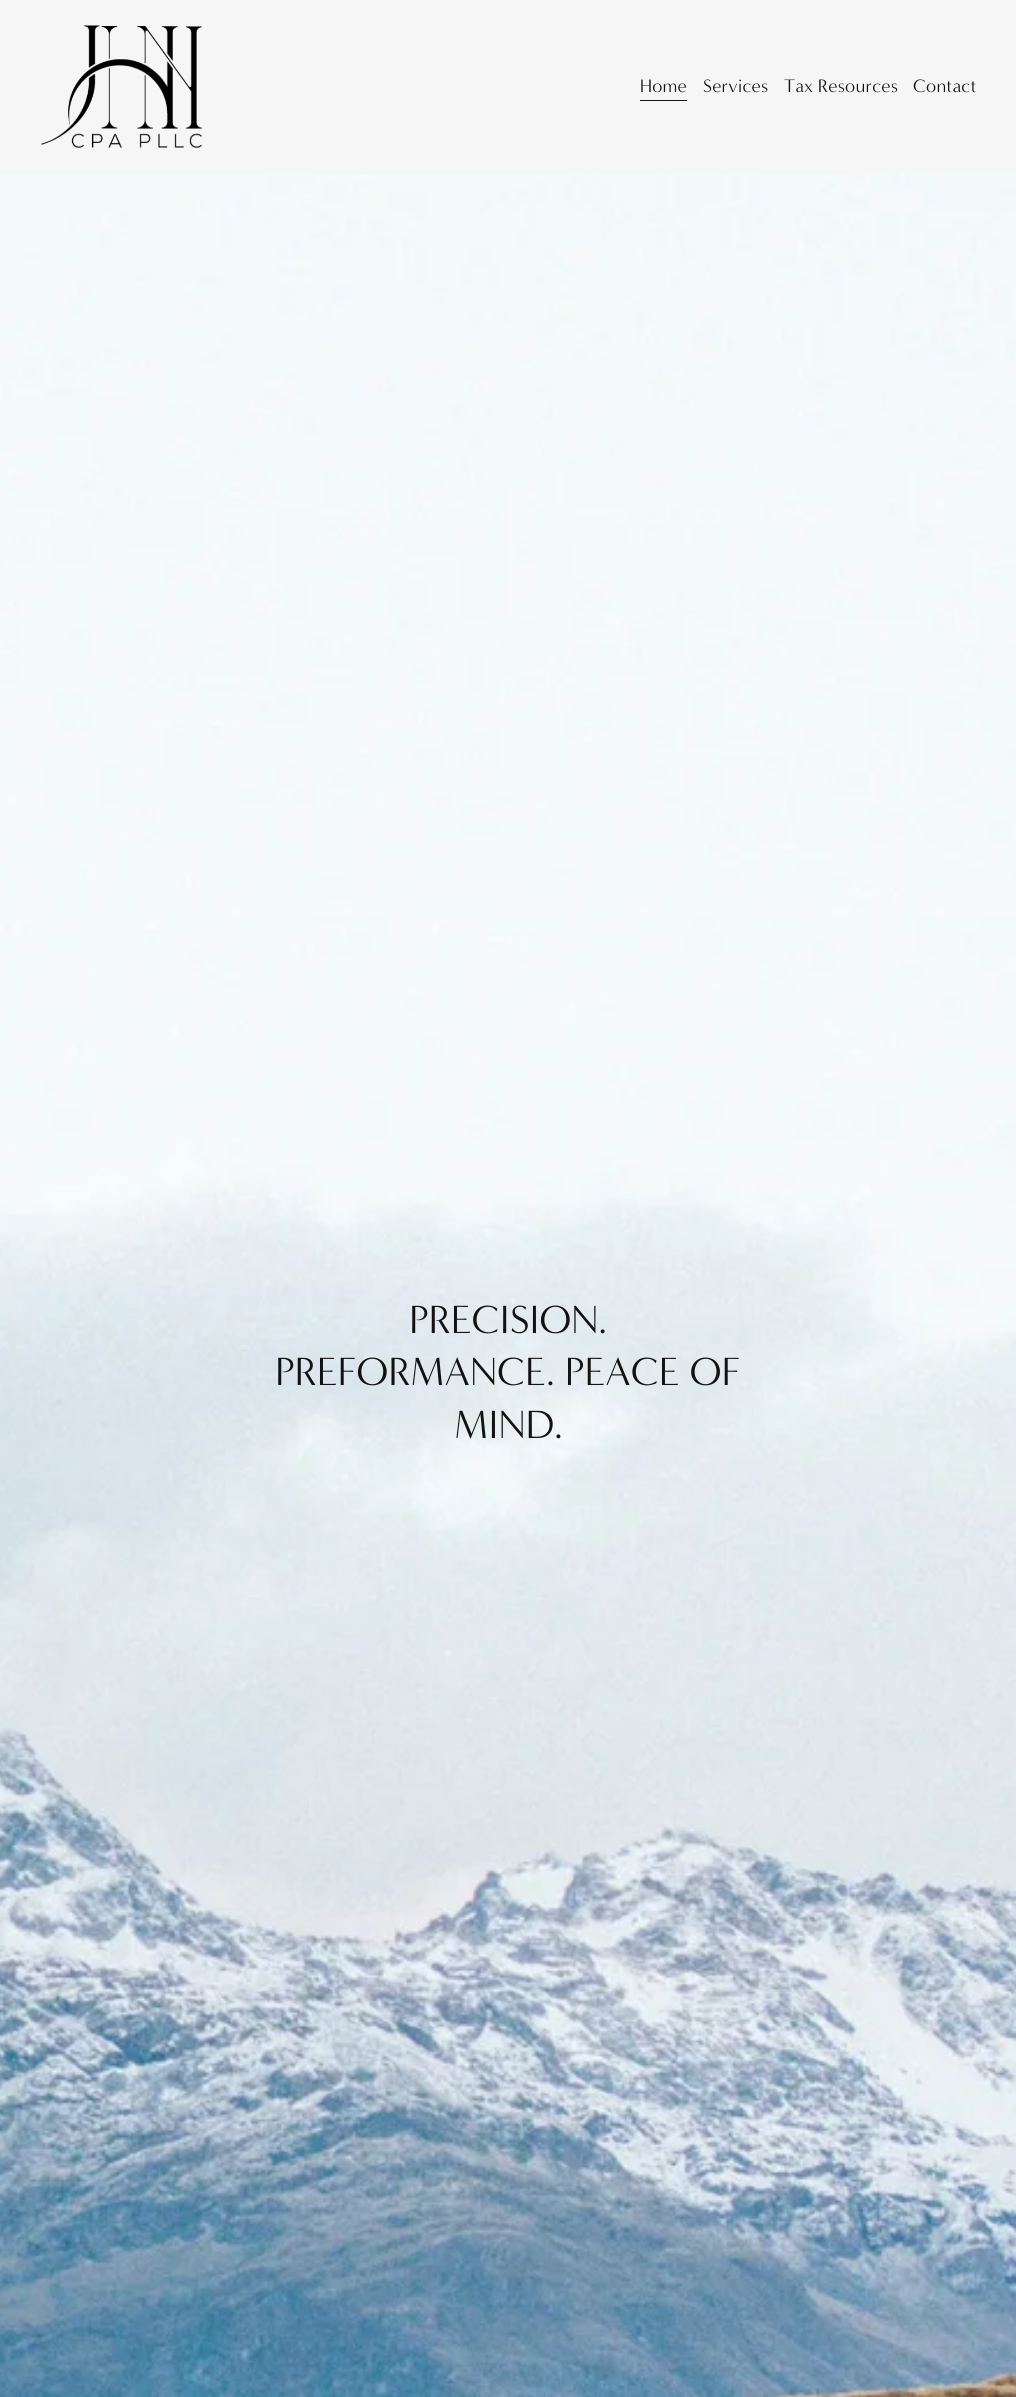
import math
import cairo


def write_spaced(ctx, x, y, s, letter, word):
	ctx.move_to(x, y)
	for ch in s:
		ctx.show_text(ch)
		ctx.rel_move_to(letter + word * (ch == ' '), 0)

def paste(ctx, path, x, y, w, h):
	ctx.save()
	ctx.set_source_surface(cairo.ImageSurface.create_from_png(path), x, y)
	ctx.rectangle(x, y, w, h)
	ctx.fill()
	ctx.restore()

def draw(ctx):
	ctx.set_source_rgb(0.961, 0.961, 0.961)
	ctx.paint()
	paste(ctx, 'media/1.png', 41, 25, 161, 123)
	ctx.set_source_rgb(0.071, 0.071, 0.071)
	ctx.rectangle(640, 100, 47, 1)
	ctx.fill()
	ctx.select_font_face('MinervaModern')
	ctx.set_font_size(18.5)
	for x, y, s in [
		(640, 92, 'Home'),
		(703, 92, 'Services'),
		(784, 92, 'Tax Resources'),
		(913, 92, 'Contact'),
	]:
		write_spaced(ctx, x, y, s, 0.25, 0)
	paste(ctx, 'media/2.png', 0, 174, 1016, 2223)
	ctx.set_font_size(40.4)
	for x, y, s in [
		(409, 1333, 'PRECISION.'),
		(275, 1385, 'PREFORMANCE. PEACE OF'),
		(454, 1438, 'MIND.'),
	]:
		ctx.move_to(x, y)
		ctx.show_text(s)


surface = cairo.ImageSurface(cairo.FORMAT_RGB24, 1016, 2397)
ctx = cairo.Context(surface)
options = cairo.FontOptions()
options.set_hint_metrics(cairo.HINT_METRICS_OFF)
options.set_hint_style(cairo.HINT_STYLE_NONE)
ctx.set_font_options(options)
ctx.set_miter_limit(4)
draw(ctx)
surface.write_to_png('image.png')
